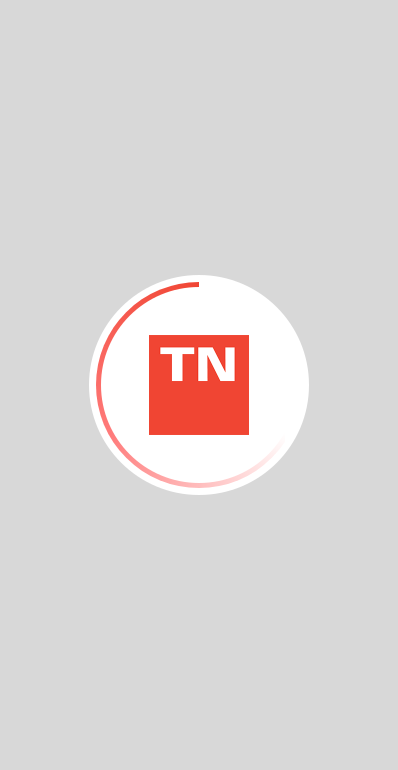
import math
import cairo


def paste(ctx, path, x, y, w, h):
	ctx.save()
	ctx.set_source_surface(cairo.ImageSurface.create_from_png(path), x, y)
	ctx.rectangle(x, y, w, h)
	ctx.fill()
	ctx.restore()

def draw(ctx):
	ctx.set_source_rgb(0.847, 0.847, 0.847)
	ctx.paint()
	ctx.set_source_rgb(1, 1, 1)
	ctx.arc(199, 385, 110, 0, 2 * math.pi)
	ctx.fill()
	paste(ctx, 'media/1.png', 96, 282, 189, 206)
	ctx.arc(199, 385, 98, 0, 2 * math.pi)
	ctx.fill()
	paste(ctx, 'media/2.png', 149, 335, 100, 100)


surface = cairo.ImageSurface(cairo.FORMAT_RGB24, 398, 770)
ctx = cairo.Context(surface)
options = cairo.FontOptions()
options.set_hint_metrics(cairo.HINT_METRICS_OFF)
options.set_hint_style(cairo.HINT_STYLE_NONE)
ctx.set_font_options(options)
ctx.set_miter_limit(4)
draw(ctx)
surface.write_to_png('image.png')
